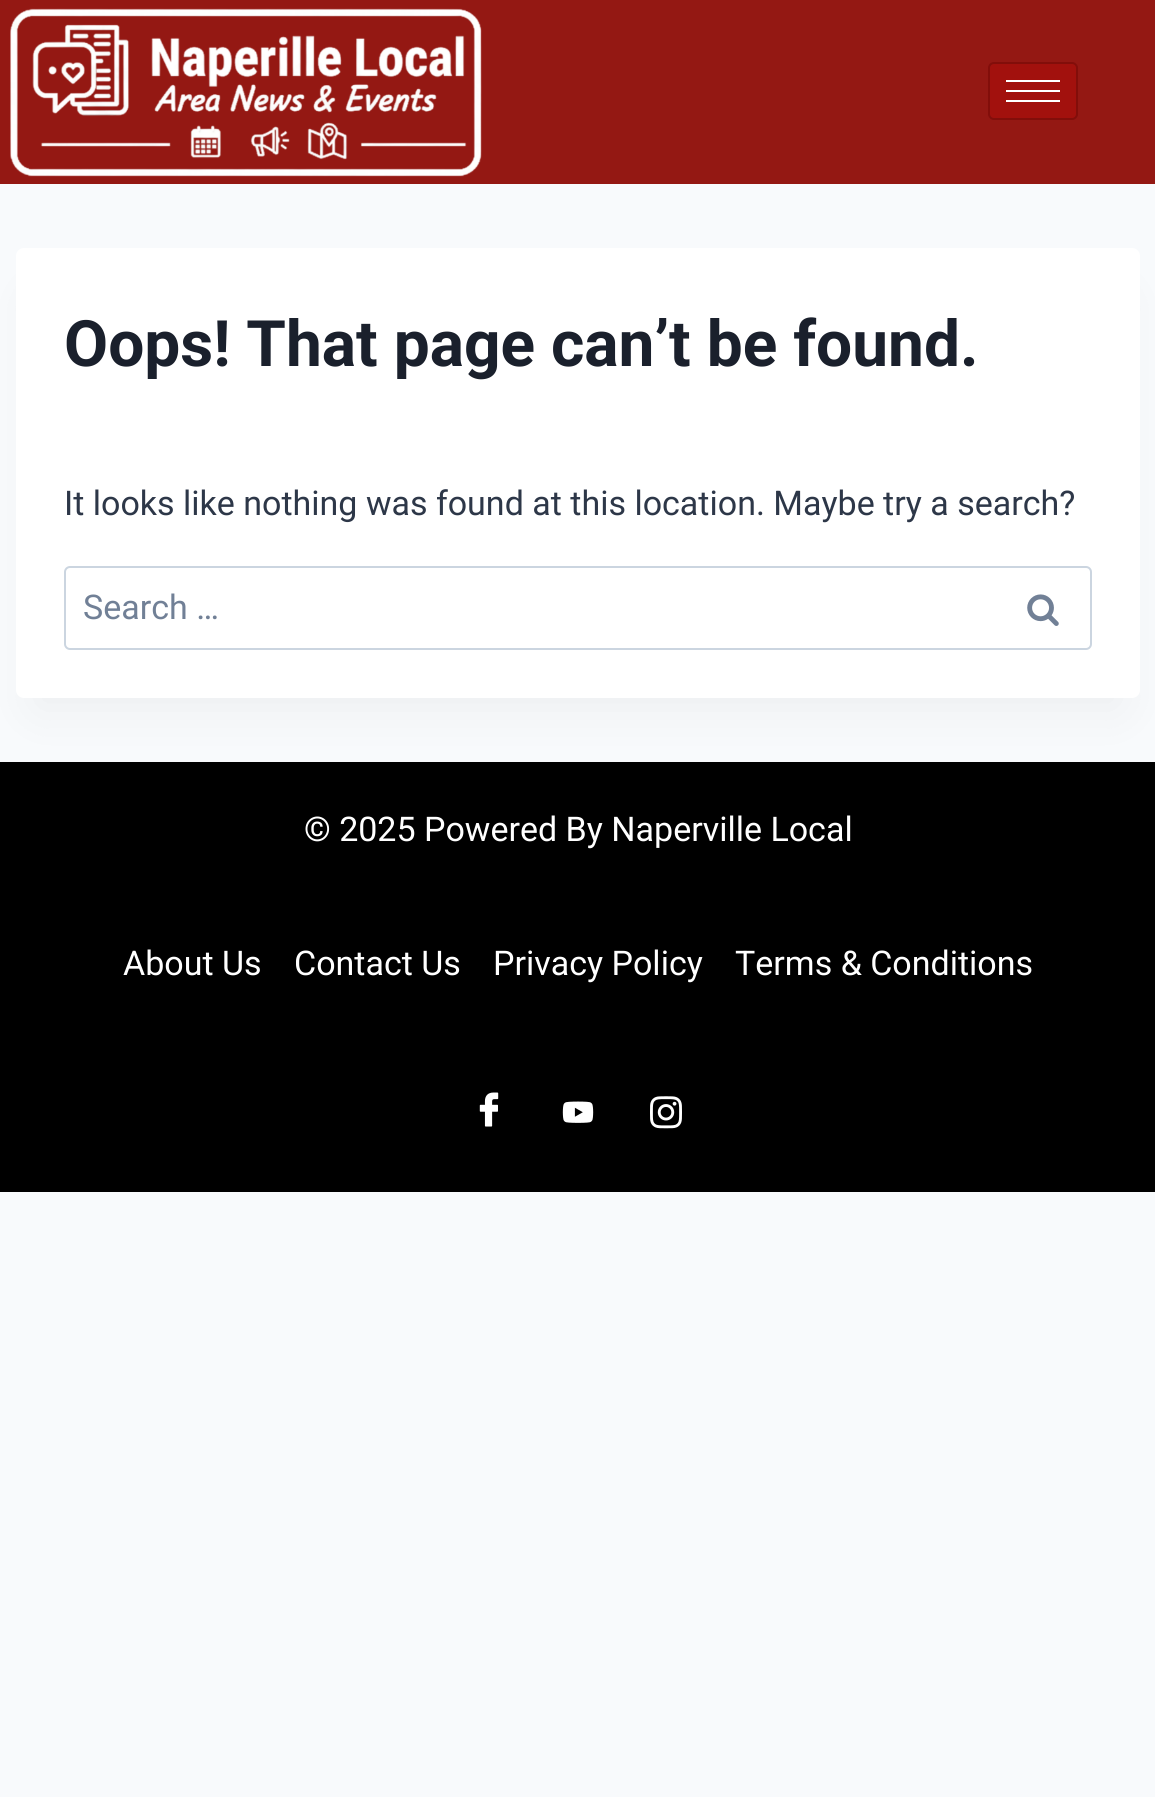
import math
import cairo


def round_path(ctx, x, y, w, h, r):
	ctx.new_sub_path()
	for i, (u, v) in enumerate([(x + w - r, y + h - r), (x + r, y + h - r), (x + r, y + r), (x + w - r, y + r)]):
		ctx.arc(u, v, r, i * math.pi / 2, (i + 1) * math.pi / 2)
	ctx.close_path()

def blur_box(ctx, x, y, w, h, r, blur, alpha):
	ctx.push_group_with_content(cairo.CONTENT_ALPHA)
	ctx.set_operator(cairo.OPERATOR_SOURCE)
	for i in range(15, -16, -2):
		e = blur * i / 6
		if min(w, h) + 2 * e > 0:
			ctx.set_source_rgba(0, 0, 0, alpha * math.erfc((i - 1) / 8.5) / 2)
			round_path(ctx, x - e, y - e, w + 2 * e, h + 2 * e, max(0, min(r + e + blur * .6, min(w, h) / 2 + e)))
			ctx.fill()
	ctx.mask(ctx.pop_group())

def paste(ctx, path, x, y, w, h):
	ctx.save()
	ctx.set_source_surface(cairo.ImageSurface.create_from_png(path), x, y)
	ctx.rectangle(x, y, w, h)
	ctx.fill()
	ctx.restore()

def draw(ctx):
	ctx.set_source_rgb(0.969, 0.98, 0.988)
	ctx.paint()
	ctx.set_source_rgb(0.58, 0.094, 0.078)
	ctx.rectangle(0, 0, 1155, 184)
	ctx.fill()
	paste(ctx, 'media/1.png', 10, 8, 472, 169)
	ctx.set_source_rgb(0.635, 0.067, 0.051)
	round_path(ctx, 988, 62, 90, 58, 6)
	ctx.fill()
	round_path(ctx, 989, 63, 88, 56, 5)
	ctx.set_source_rgba(0, 0, 0, 0.2)
	ctx.stroke()
	ctx.set_source_rgb(1, 1, 1)
	ctx.rectangle(1006, 80, 54, 2)
	ctx.rectangle(1006, 90, 54, 2)
	ctx.rectangle(1006, 100, 54, 2)
	ctx.fill()
	ctx.set_source_rgb(0, 0, 0)
	blur_box(ctx, 36, 298, 1084, 410, 0, 25, 0.05)
	ctx.set_source_rgb(1, 1, 1)
	round_path(ctx, 16, 248, 1124, 450, 8)
	ctx.fill()
	ctx.select_font_face('Roboto', cairo.FONT_SLANT_NORMAL, cairo.FONT_WEIGHT_BOLD)
	ctx.set_font_size(64)
	ctx.set_source_rgb(0.102, 0.125, 0.173)
	ctx.move_to(64, 366)
	ctx.show_text('Oops! That page can’t be found.')
	ctx.select_font_face('Roboto')
	ctx.set_font_size(34)
	ctx.set_source_rgb(0.176, 0.216, 0.282)
	ctx.move_to(64, 515)
	ctx.show_text('It looks like nothing was found at this location. Maybe try a search?')
	round_path(ctx, 65, 567, 1026, 82, 5)
	ctx.set_source_rgb(0.796, 0.835, 0.878)
	ctx.stroke()
	ctx.set_source_rgb(0.443, 0.502, 0.588)
	ctx.move_to(83, 619)
	ctx.show_text('Search …')
	paste(ctx, 'media/2.png', 1027, 594, 32, 32)
	ctx.set_source_rgb(0, 0, 0)
	ctx.rectangle(0, 762, 1155, 430)
	ctx.fill()
	ctx.set_source_rgb(1, 1, 1)
	for x, y, s in [
		(304, 841, '© 2025 Powered By Naperville Local'),
		(123, 975, 'About Us'),
		(294, 975, 'Contact Us'),
		(493, 975, 'Privacy Policy'),
		(735, 975, 'Terms & Conditions'),
	]:
		ctx.move_to(x, y)
		ctx.show_text(s)
	paste(ctx, 'media/3.png', 479, 1092, 20, 35)
	paste(ctx, 'media/4.png', 562, 1101, 32, 22)
	paste(ctx, 'media/5.png', 650, 1096, 32, 33)


surface = cairo.ImageSurface(cairo.FORMAT_RGB24, 1155, 1797)
ctx = cairo.Context(surface)
options = cairo.FontOptions()
options.set_hint_metrics(cairo.HINT_METRICS_OFF)
options.set_hint_style(cairo.HINT_STYLE_NONE)
ctx.set_font_options(options)
ctx.set_miter_limit(4)
draw(ctx)
surface.write_to_png('image.png')
